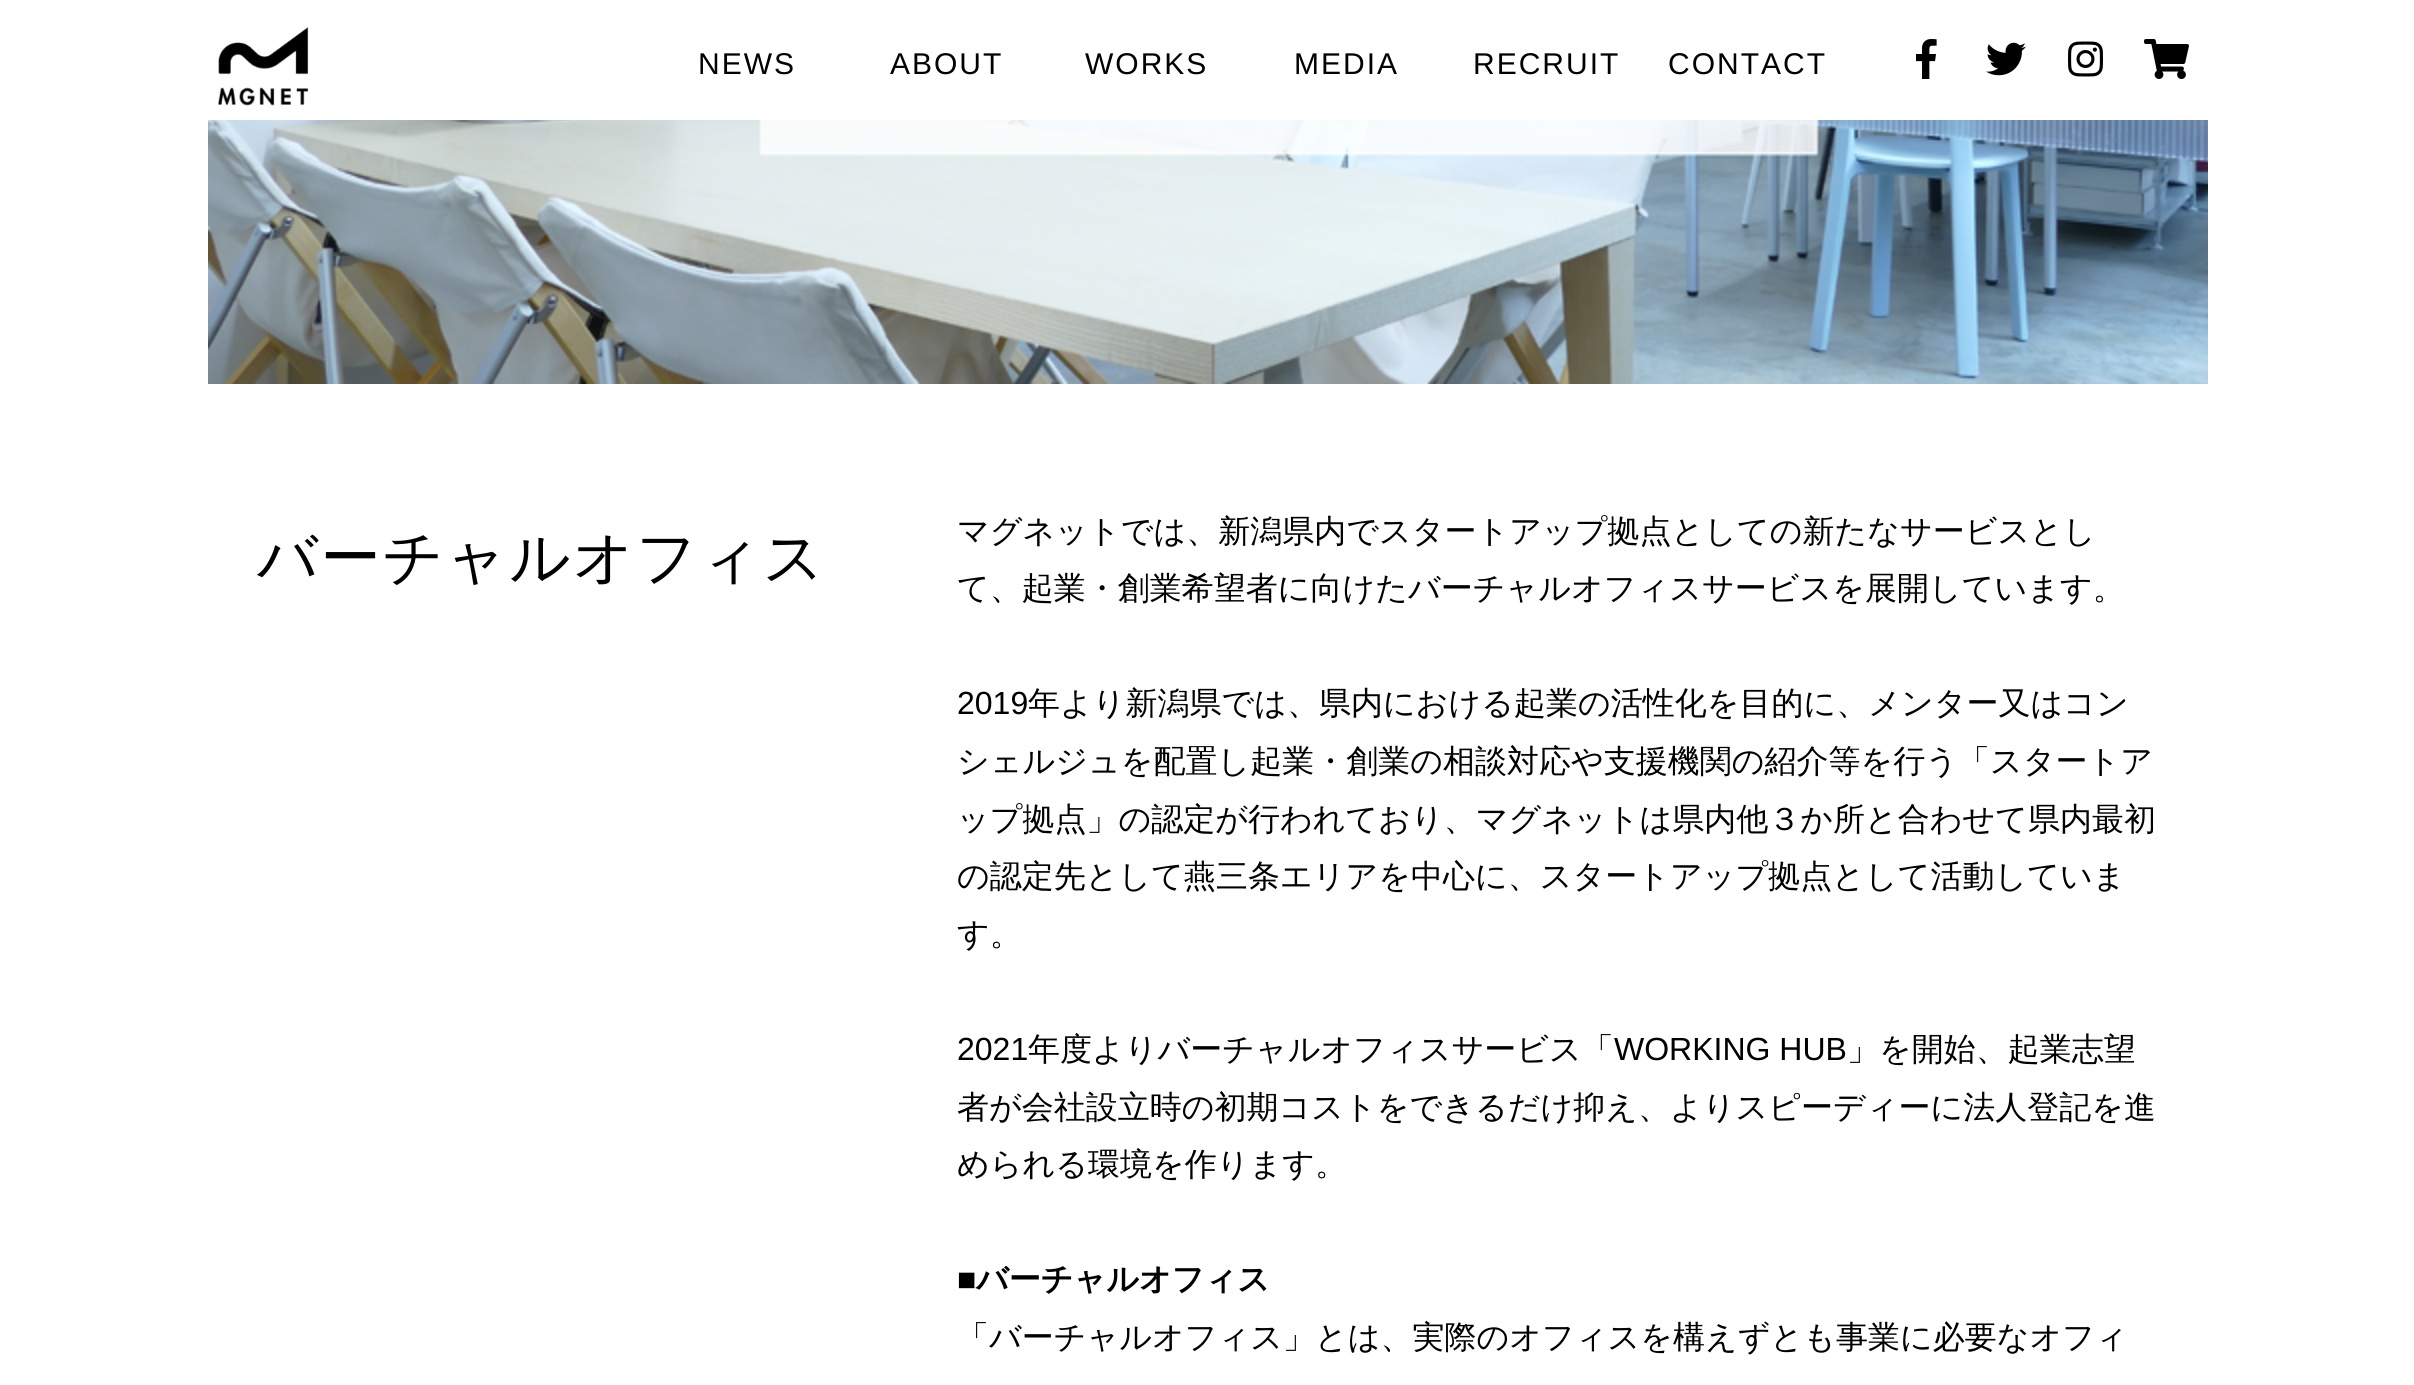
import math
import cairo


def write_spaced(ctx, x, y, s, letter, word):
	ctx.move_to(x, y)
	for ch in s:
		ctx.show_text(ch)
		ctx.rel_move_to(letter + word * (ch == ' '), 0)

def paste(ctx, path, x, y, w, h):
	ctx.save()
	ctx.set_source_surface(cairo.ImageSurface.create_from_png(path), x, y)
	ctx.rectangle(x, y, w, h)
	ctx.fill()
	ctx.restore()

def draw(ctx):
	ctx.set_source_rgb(1, 1, 1)
	ctx.paint()
	paste(ctx, 'media/1.png', 218, 27, 91, 79)
	ctx.select_font_face('Liberation Sans')
	ctx.set_font_size(30)
	ctx.set_source_rgb(0, 0, 0)
	for x, y, s in [
		(698, 74, 'NEWS'),
		(890, 74, 'ABOUT'),
		(1085, 74, 'WORKS'),
		(1294, 74, 'MEDIA'),
		(1473, 74, 'RECRUIT'),
		(1668, 74, 'CONTACT'),
	]:
		write_spaced(ctx, x, y, s, 2, 0)
	paste(ctx, 'media/2.png', 1916, 39, 21, 40)
	paste(ctx, 'media/3.png', 1986, 42, 40, 34)
	paste(ctx, 'media/4.png', 2068, 41, 35, 36)
	paste(ctx, 'media/5.png', 2144, 39, 45, 40)
	paste(ctx, 'media/6.png', 208, 120, 2000, 264)
	ctx.select_font_face('WenQuanYi Zen Hei Medium')
	ctx.set_font_size(60)
	write_spaced(ctx, 257, 578, 'バーチャルオフィス', 2, 0)
	ctx.set_font_size(32)
	ctx.move_to(957, 542)
	ctx.show_text('マグネットでは、新潟県内でスタートアップ拠点としての新たなサービスとし')
	ctx.move_to(957, 599)
	ctx.show_text('て、起業・創業希望者に向けたバーチャルオフィスサービスを展開しています。')
	ctx.select_font_face('Liberation Sans')
	ctx.move_to(957, 714)
	ctx.show_text('2019')
	ctx.select_font_face('WenQuanYi Zen Hei Medium')
	for x, y, s in [
		(1028, 714, '年より新潟県では、県内における起業の活性化を目的に、メンター又はコン'),
		(957, 772, 'シェルジュを配置し起業・創業の相談対応や支援機関の紹介等を行う「スタートア'),
		(957, 830, 'ップ拠点」の認定が行われており、マグネットは県内他３か所と合わせて県内最初'),
		(957, 887, 'の認定先として燕三条エリアを中心に、スタートアップ拠点として活動していま'),
		(957, 945, 'す。'),
	]:
		ctx.move_to(x, y)
		ctx.show_text(s)
	ctx.select_font_face('Liberation Sans')
	ctx.move_to(957, 1060)
	ctx.show_text('2021')
	ctx.select_font_face('WenQuanYi Zen Hei Medium')
	ctx.move_to(1028, 1060)
	ctx.show_text('年度よりバーチャルオフィスサービス「')
	ctx.select_font_face('Liberation Sans')
	ctx.move_to(1614, 1060)
	ctx.show_text('WORKING HUB')
	ctx.select_font_face('WenQuanYi Zen Hei Medium')
	for x, y, s in [
		(1847, 1060, '」を開始、起業志望'),
		(957, 1118, '者が会社設立時の初期コストをできるだけ抑え、よりスピーディーに法人登記を進'),
		(957, 1175, 'められる環境を作ります。'),
	]:
		ctx.move_to(x, y)
		ctx.show_text(s)
	ctx.select_font_face('Liberation Sans', cairo.FONT_SLANT_NORMAL, cairo.FONT_WEIGHT_BOLD)
	ctx.move_to(957, 1290)
	ctx.show_text('■')
	ctx.select_font_face('WenQuanYi Zen Hei', cairo.FONT_SLANT_NORMAL, cairo.FONT_WEIGHT_BOLD)
	ctx.move_to(976, 1290)
	ctx.show_text('バーチャルオフィス')
	ctx.select_font_face('WenQuanYi Zen Hei Medium')
	ctx.move_to(957, 1348)
	ctx.show_text('「バーチャルオフィス」とは、実際のオフィスを構えずとも事業に必要なオフィ')


surface = cairo.ImageSurface(cairo.FORMAT_RGB24, 2414, 1385)
ctx = cairo.Context(surface)
options = cairo.FontOptions()
options.set_hint_metrics(cairo.HINT_METRICS_OFF)
options.set_hint_style(cairo.HINT_STYLE_NONE)
ctx.set_font_options(options)
ctx.set_miter_limit(4)
draw(ctx)
surface.write_to_png('image.png')
